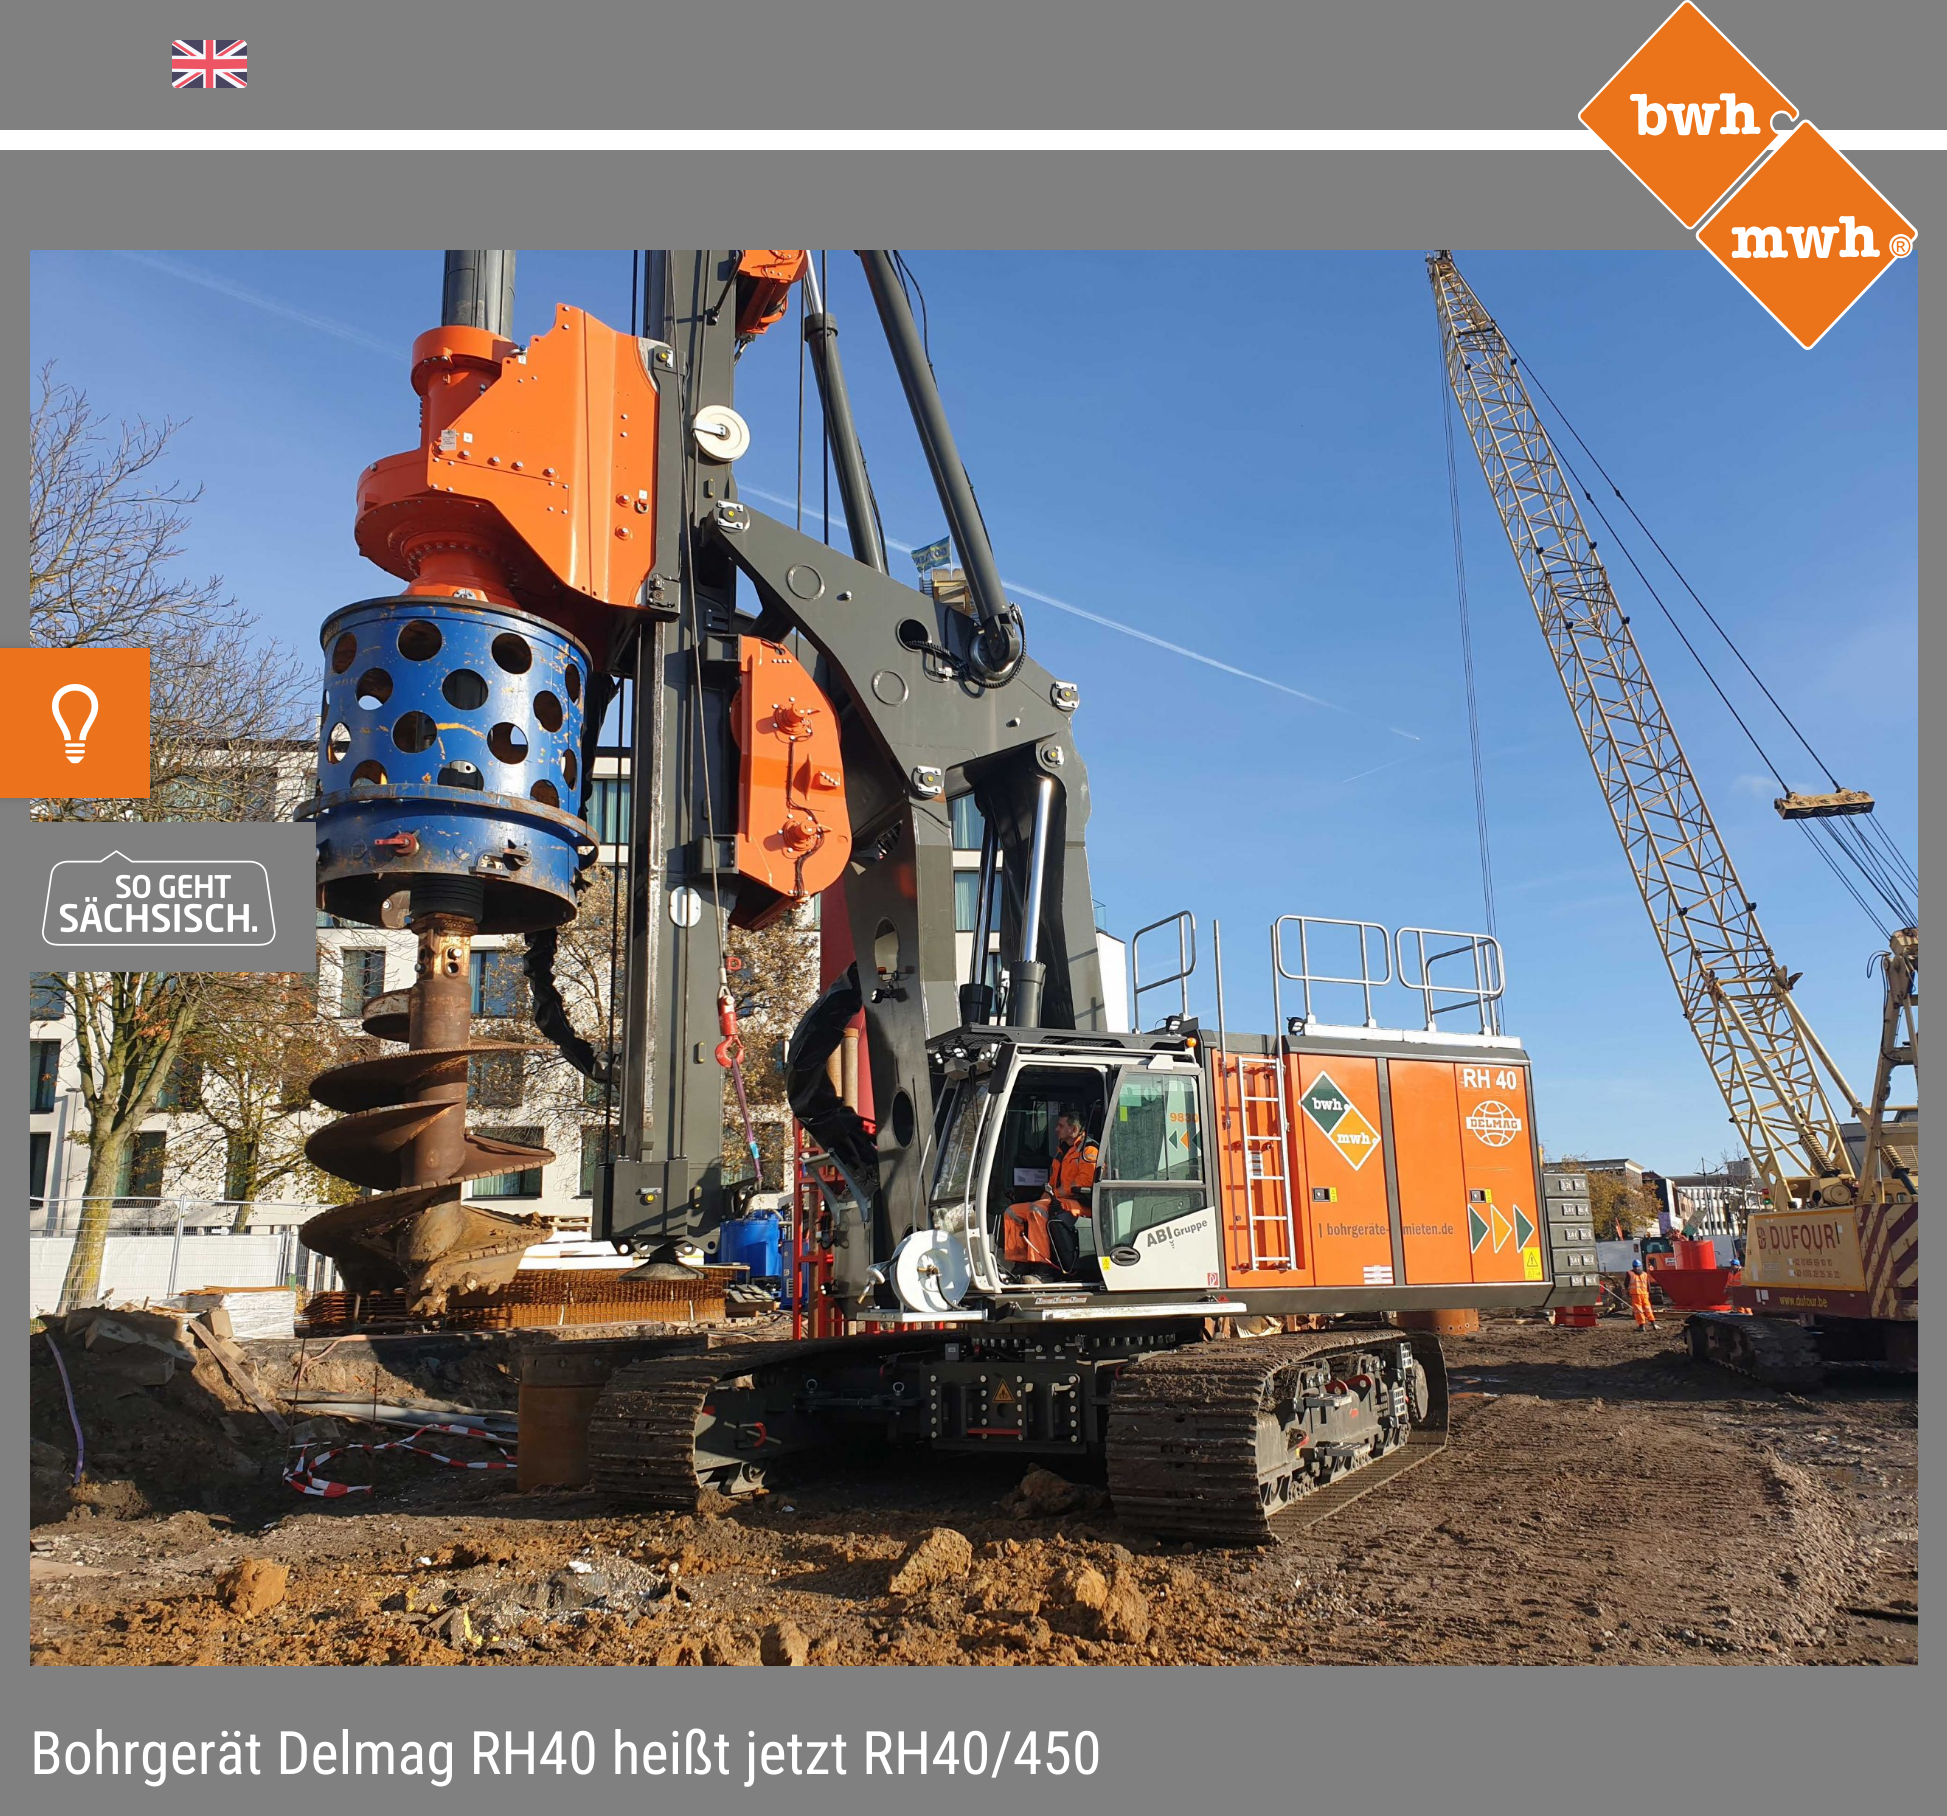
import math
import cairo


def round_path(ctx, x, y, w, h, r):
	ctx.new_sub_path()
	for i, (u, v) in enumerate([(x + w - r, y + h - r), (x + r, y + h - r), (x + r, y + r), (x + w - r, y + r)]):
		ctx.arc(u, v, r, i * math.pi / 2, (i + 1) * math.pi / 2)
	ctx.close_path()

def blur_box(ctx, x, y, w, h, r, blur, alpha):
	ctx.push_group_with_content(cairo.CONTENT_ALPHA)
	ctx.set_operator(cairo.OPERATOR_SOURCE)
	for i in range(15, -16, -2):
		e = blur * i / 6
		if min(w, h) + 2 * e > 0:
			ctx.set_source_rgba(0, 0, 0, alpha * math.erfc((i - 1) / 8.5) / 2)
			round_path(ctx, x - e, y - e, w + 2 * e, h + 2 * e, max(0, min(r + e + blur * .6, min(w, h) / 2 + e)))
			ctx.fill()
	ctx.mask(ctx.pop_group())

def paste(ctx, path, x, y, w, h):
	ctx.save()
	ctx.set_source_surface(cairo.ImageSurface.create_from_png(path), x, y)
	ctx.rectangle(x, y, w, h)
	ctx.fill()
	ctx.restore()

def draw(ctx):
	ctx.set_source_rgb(0.502, 0.502, 0.502)
	ctx.paint()
	paste(ctx, 'media/5.png', 30, 250, 1888, 1416)
	ctx.set_source_rgb(0, 0, 0)
	blur_box(ctx, 0, 648, 150, 150, 0, 5, 0.2)
	ctx.set_source_rgb(0.925, 0.451, 0.11)
	ctx.rectangle(0, 648, 150, 150)
	ctx.fill()
	paste(ctx, 'media/1.png', 52, 684, 47, 80)
	ctx.set_source_rgb(0.502, 0.502, 0.502)
	ctx.rectangle(30, 822, 286, 150)
	ctx.fill()
	paste(ctx, 'media/2.png', 42, 850, 234, 96)
	ctx.set_source_rgb(1, 1, 1)
	ctx.rectangle(0, 130, 1947, 20)
	ctx.fill()
	paste(ctx, 'media/3.png', 172, 40, 75, 48)
	paste(ctx, 'media/4.png', 1578, 0, 340, 350)
	ctx.select_font_face('Roboto Condensed')
	ctx.set_font_size(60)
	ctx.move_to(30, 1774)
	ctx.show_text('Bohrgerät Delmag RH40 heißt jetzt RH40/450')


surface = cairo.ImageSurface(cairo.FORMAT_RGB24, 1947, 1816)
ctx = cairo.Context(surface)
options = cairo.FontOptions()
options.set_hint_metrics(cairo.HINT_METRICS_OFF)
options.set_hint_style(cairo.HINT_STYLE_NONE)
ctx.set_font_options(options)
ctx.set_miter_limit(4)
draw(ctx)
surface.write_to_png('image.png')
